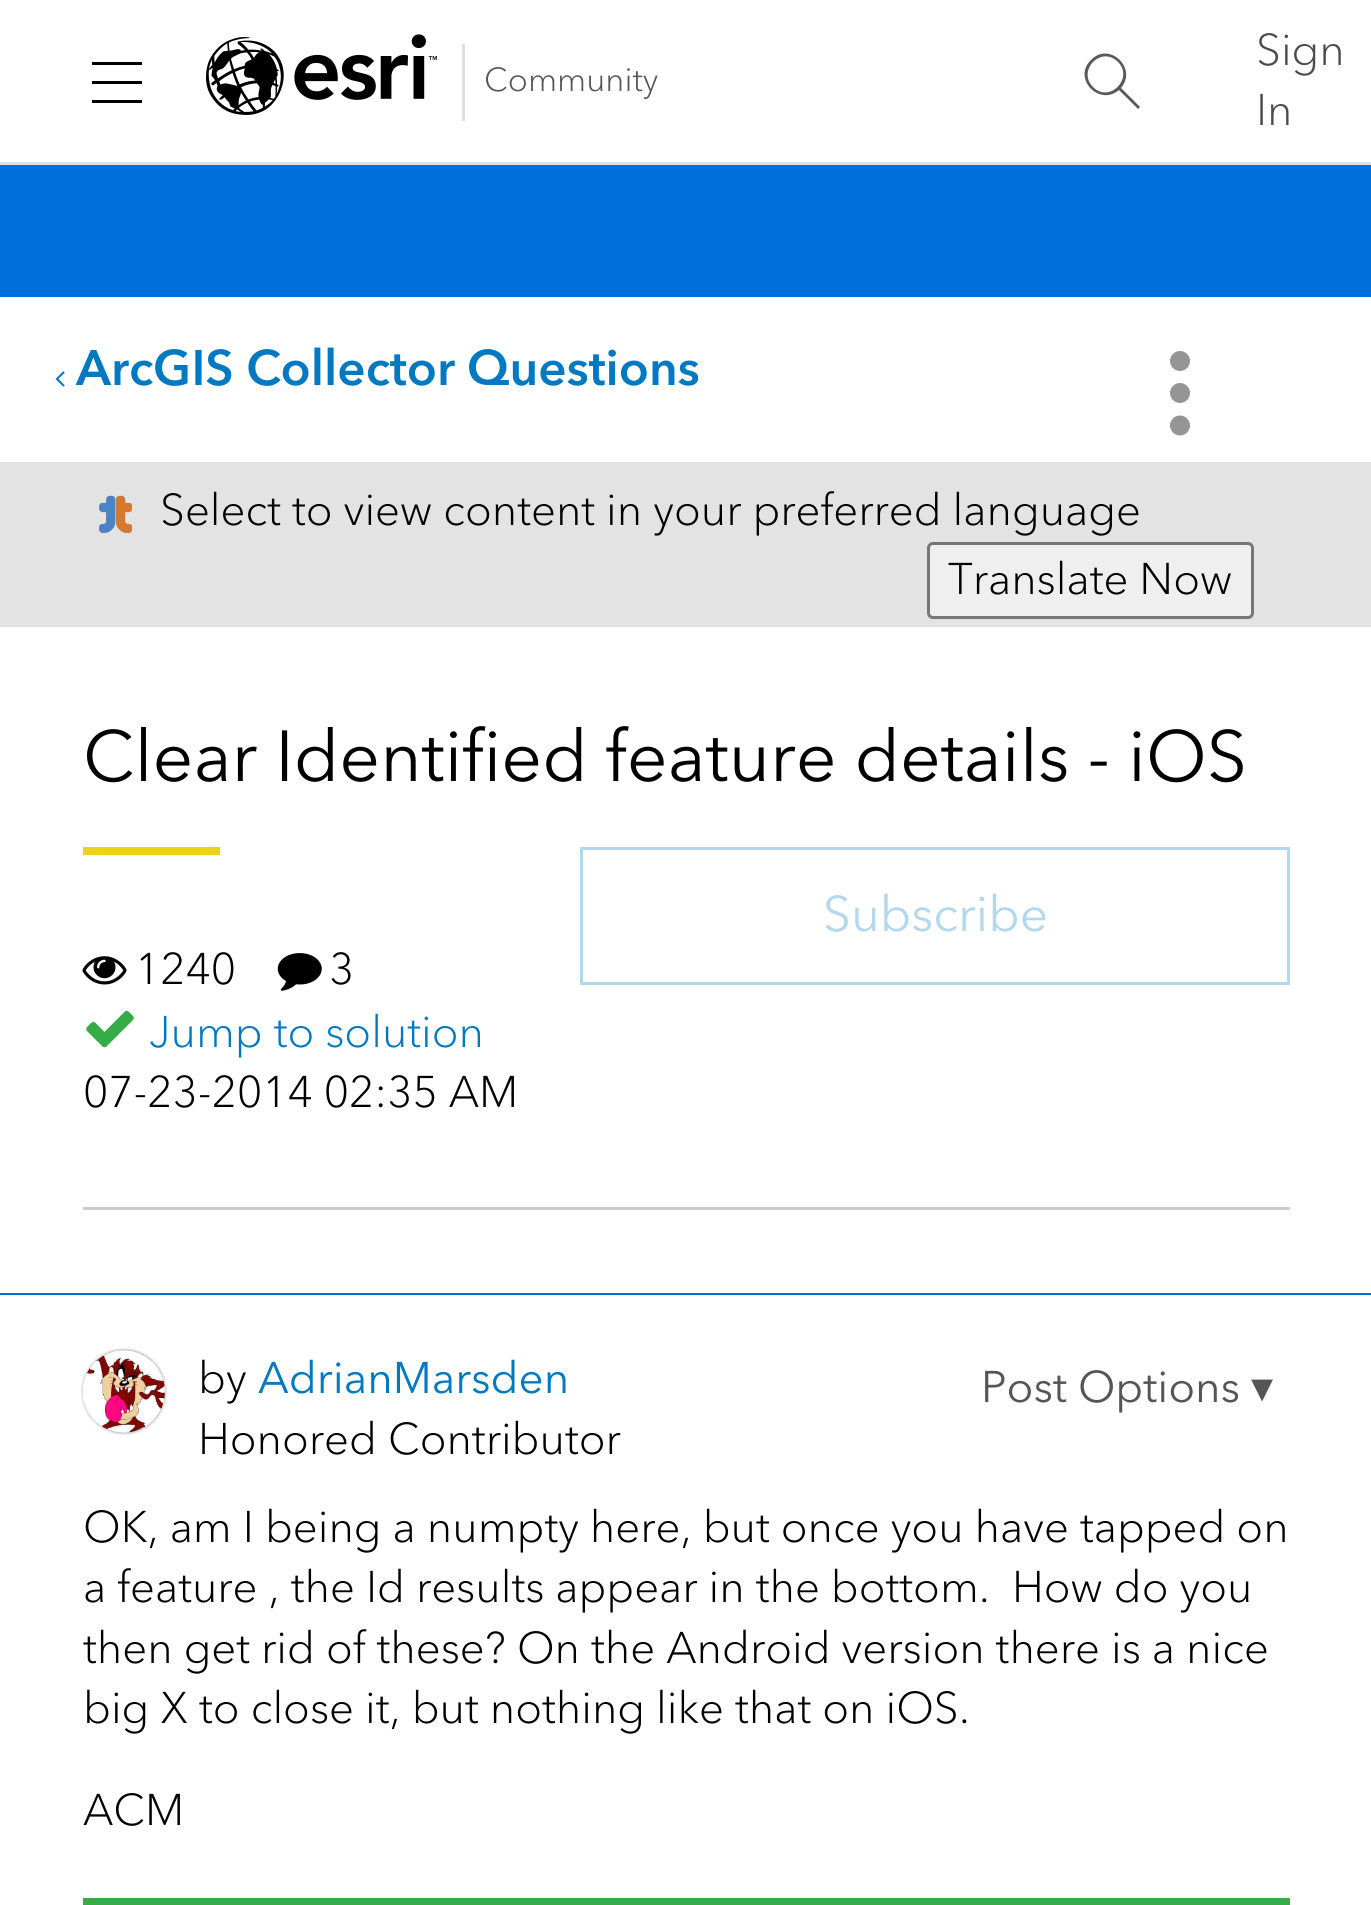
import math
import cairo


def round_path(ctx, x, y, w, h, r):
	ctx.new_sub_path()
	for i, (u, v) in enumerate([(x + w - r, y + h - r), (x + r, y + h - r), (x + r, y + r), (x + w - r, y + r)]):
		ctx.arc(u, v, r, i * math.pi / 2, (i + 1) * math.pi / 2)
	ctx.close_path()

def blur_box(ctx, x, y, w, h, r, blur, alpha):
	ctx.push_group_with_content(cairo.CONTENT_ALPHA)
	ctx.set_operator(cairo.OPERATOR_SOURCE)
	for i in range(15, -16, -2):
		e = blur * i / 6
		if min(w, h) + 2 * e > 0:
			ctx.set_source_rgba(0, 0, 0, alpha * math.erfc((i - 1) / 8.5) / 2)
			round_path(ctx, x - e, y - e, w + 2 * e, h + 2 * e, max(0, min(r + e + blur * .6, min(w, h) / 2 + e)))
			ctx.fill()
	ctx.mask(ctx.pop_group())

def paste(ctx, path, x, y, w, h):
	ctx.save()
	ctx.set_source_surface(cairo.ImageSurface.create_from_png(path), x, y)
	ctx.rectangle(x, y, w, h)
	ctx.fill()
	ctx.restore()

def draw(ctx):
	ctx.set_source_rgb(0, 0.435, 0.871)
	ctx.paint()
	ctx.set_source_rgb(1, 1, 1)
	ctx.rectangle(0, 0, 1371, 162)
	ctx.fill()
	ctx.set_source_rgb(0.878, 0.878, 0.878)
	ctx.rectangle(0, 162, 1371, 3)
	ctx.fill()
	ctx.set_source_rgb(0, 0, 0)
	ctx.new_path()
	ctx.move_to(142, 65)
	ctx.line_to(92, 65)
	ctx.line_to(92, 62)
	ctx.line_to(142, 62)
	ctx.close_path()
	ctx.move_to(142, 81)
	ctx.line_to(92, 81)
	ctx.line_to(92, 84)
	ctx.line_to(142, 84)
	ctx.close_path()
	ctx.move_to(142, 100)
	ctx.line_to(92, 100)
	ctx.line_to(92, 103)
	ctx.line_to(142, 103)
	ctx.close_path()
	ctx.fill()
	paste(ctx, 'media/1.png', 206, 34, 231, 81)
	ctx.set_source_rgb(0.878, 0.878, 0.878)
	ctx.rectangle(462, 44, 3, 77)
	ctx.fill()
	ctx.select_font_face('Avenir Next Light')
	ctx.set_font_size(33)
	ctx.set_source_rgb(0.333, 0.333, 0.333)
	ctx.move_to(484, 91)
	ctx.show_text('Community')
	ctx.set_source_rgb(0.349, 0.349, 0.349)
	ctx.new_path()
	ctx.move_to(1140, 107)
	ctx.line_to(1121, 88)
	ctx.curve_to(1138, 68, 1109, 41, 1091, 60)
	ctx.curve_to(1072, 78, 1099, 107, 1119, 90)
	ctx.line_to(1138, 109)
	ctx.close_path()
	ctx.move_to(1093, 87)
	ctx.curve_to(1077, 71, 1100, 46, 1117, 61)
	ctx.curve_to(1135, 77, 1110, 104, 1093, 87)
	ctx.close_path()
	ctx.fill()
	ctx.set_font_size(44)
	ctx.set_source_rgb(0.298, 0.298, 0.298)
	ctx.move_to(1256, 65)
	ctx.show_text('Sign')
	ctx.move_to(1256, 125)
	ctx.show_text('In')
	ctx.set_source_rgb(1, 1, 1)
	ctx.rectangle(0, 297, 1371, 165)
	ctx.fill()
	paste(ctx, 'media/2.png', 55, 371, 10, 16)
	ctx.select_font_face('Avenir Next', cairo.FONT_SLANT_NORMAL, cairo.FONT_WEIGHT_BOLD)
	ctx.set_font_size(49.5)
	ctx.set_source_rgb(0, 0.475, 0.757)
	ctx.move_to(76, 385)
	ctx.show_text('ArcGIS Collector Questions')
	ctx.set_source_rgb(0.584, 0.584, 0.584)
	ctx.new_path()
	ctx.arc(1180, 361, 10, 0, 2 * math.pi)
	ctx.fill()
	ctx.arc(1180, 393, 10, 0, 2 * math.pi)
	ctx.fill()
	ctx.arc(1180, 425.5, 10, 0, 2 * math.pi)
	ctx.fill()
	ctx.set_source_rgb(0.89, 0.89, 0.89)
	ctx.rectangle(0, 462, 1371, 165)
	ctx.fill()
	paste(ctx, 'media/3.png', 99, 495, 33, 38)
	ctx.select_font_face('Avenir Next Light')
	ctx.set_font_size(44)
	ctx.set_source_rgb(0, 0, 0)
	ctx.move_to(160, 525)
	ctx.show_text('Select to view content in your preferred language')
	ctx.set_source_rgb(0.937, 0.937, 0.937)
	round_path(ctx, 928.5, 543.5, 324, 74, 4.5)
	ctx.fill_preserve()
	ctx.set_source_rgb(0.463, 0.463, 0.463)
	ctx.set_line_width(3)
	ctx.stroke()
	ctx.set_source_rgb(0, 0, 0)
	ctx.move_to(948, 594)
	ctx.show_text('Translate Now')
	ctx.set_source_rgb(1, 1, 1)
	ctx.rectangle(0, 627, 1371, 666)
	ctx.fill()
	ctx.select_font_face('Avenir Next')
	ctx.set_font_size(71.5)
	ctx.set_source_rgb(0, 0, 0)
	ctx.move_to(83, 781)
	ctx.show_text('Clear Identified feature details - iOS')
	ctx.set_source_rgb(0.929, 0.827, 0.09)
	ctx.rectangle(83, 847, 137, 8)
	ctx.fill()
	ctx.rectangle(581.5, 848.5, 707, 135)
	ctx.set_source_rgb(0.702, 0.843, 0.929)
	ctx.stroke()
	ctx.set_font_size(49.5)
	ctx.move_to(823, 931)
	ctx.show_text('Subscribe')
	paste(ctx, 'media/4.png', 82, 956, 45, 29)
	ctx.select_font_face('Avenir Next Light')
	ctx.set_font_size(44)
	ctx.set_source_rgb(0, 0, 0)
	ctx.move_to(135, 984)
	ctx.show_text('1240')
	paste(ctx, 'media/5.png', 277, 953, 45, 38)
	ctx.move_to(329, 984)
	ctx.show_text('3')
	paste(ctx, 'media/6.png', 86, 1010, 48, 38)
	ctx.set_source_rgb(0, 0.475, 0.757)
	ctx.move_to(149, 1047)
	ctx.show_text('Jump to solution')
	ctx.set_source_rgb(0, 0, 0)
	ctx.move_to(83, 1107)
	ctx.show_text('07-23-2014 02:35 AM')
	ctx.set_source_rgb(0.8, 0.8, 0.8)
	ctx.rectangle(83, 1207, 1207, 3)
	ctx.fill()
	ctx.set_source_rgb(1, 1, 1)
	ctx.rectangle(0, 1295, 1371, 610)
	ctx.fill()
	ctx.set_source_rgb(0.584, 0.584, 0.584)
	blur_box(ctx, 83, 1350, 82, 83, 41, 1.5, 1)
	paste(ctx, 'media/7.png', 82, 1350, 83, 83)
	ctx.set_source_rgb(0, 0, 0)
	ctx.move_to(198, 1393)
	ctx.show_text('by')
	ctx.select_font_face('Avenir Next')
	ctx.set_source_rgb(0, 0.475, 0.757)
	ctx.move_to(258, 1393)
	ctx.show_text('AdrianMarsden')
	ctx.select_font_face('Avenir Next Light')
	ctx.set_source_rgb(0, 0, 0)
	ctx.move_to(198, 1454)
	ctx.show_text('Honored Contributor')
	ctx.select_font_face('Avenir Next')
	ctx.set_source_rgb(0.333, 0.333, 0.333)
	ctx.move_to(981, 1402)
	ctx.show_text('Post Options')
	ctx.select_font_face('DejaVu Sans')
	ctx.move_to(1251, 1402)
	ctx.show_text('▾')
	ctx.select_font_face('Avenir Next Light')
	ctx.set_source_rgb(0, 0, 0)
	for x, y, s in [
		(83, 1542, 'OK, am I being a numpty here, but once you have tapped on'),
		(83, 1602, 'a feature , the Id results appear in the bottom.  How do you'),
		(83, 1663, 'then get rid of these? On the Android version there is a nice'),
		(83, 1723, 'big X to close it, but nothing like that on iOS.'),
		(83, 1825, 'ACM'),
	]:
		ctx.move_to(x, y)
		ctx.show_text(s)
	ctx.set_source_rgb(0.208, 0.675, 0.275)
	ctx.rectangle(83, 1898, 1207, 7)
	ctx.fill()


surface = cairo.ImageSurface(cairo.FORMAT_RGB24, 1371, 1905)
ctx = cairo.Context(surface)
options = cairo.FontOptions()
options.set_hint_metrics(cairo.HINT_METRICS_OFF)
options.set_hint_style(cairo.HINT_STYLE_NONE)
ctx.set_font_options(options)
ctx.set_miter_limit(4)
draw(ctx)
surface.write_to_png('image.png')
